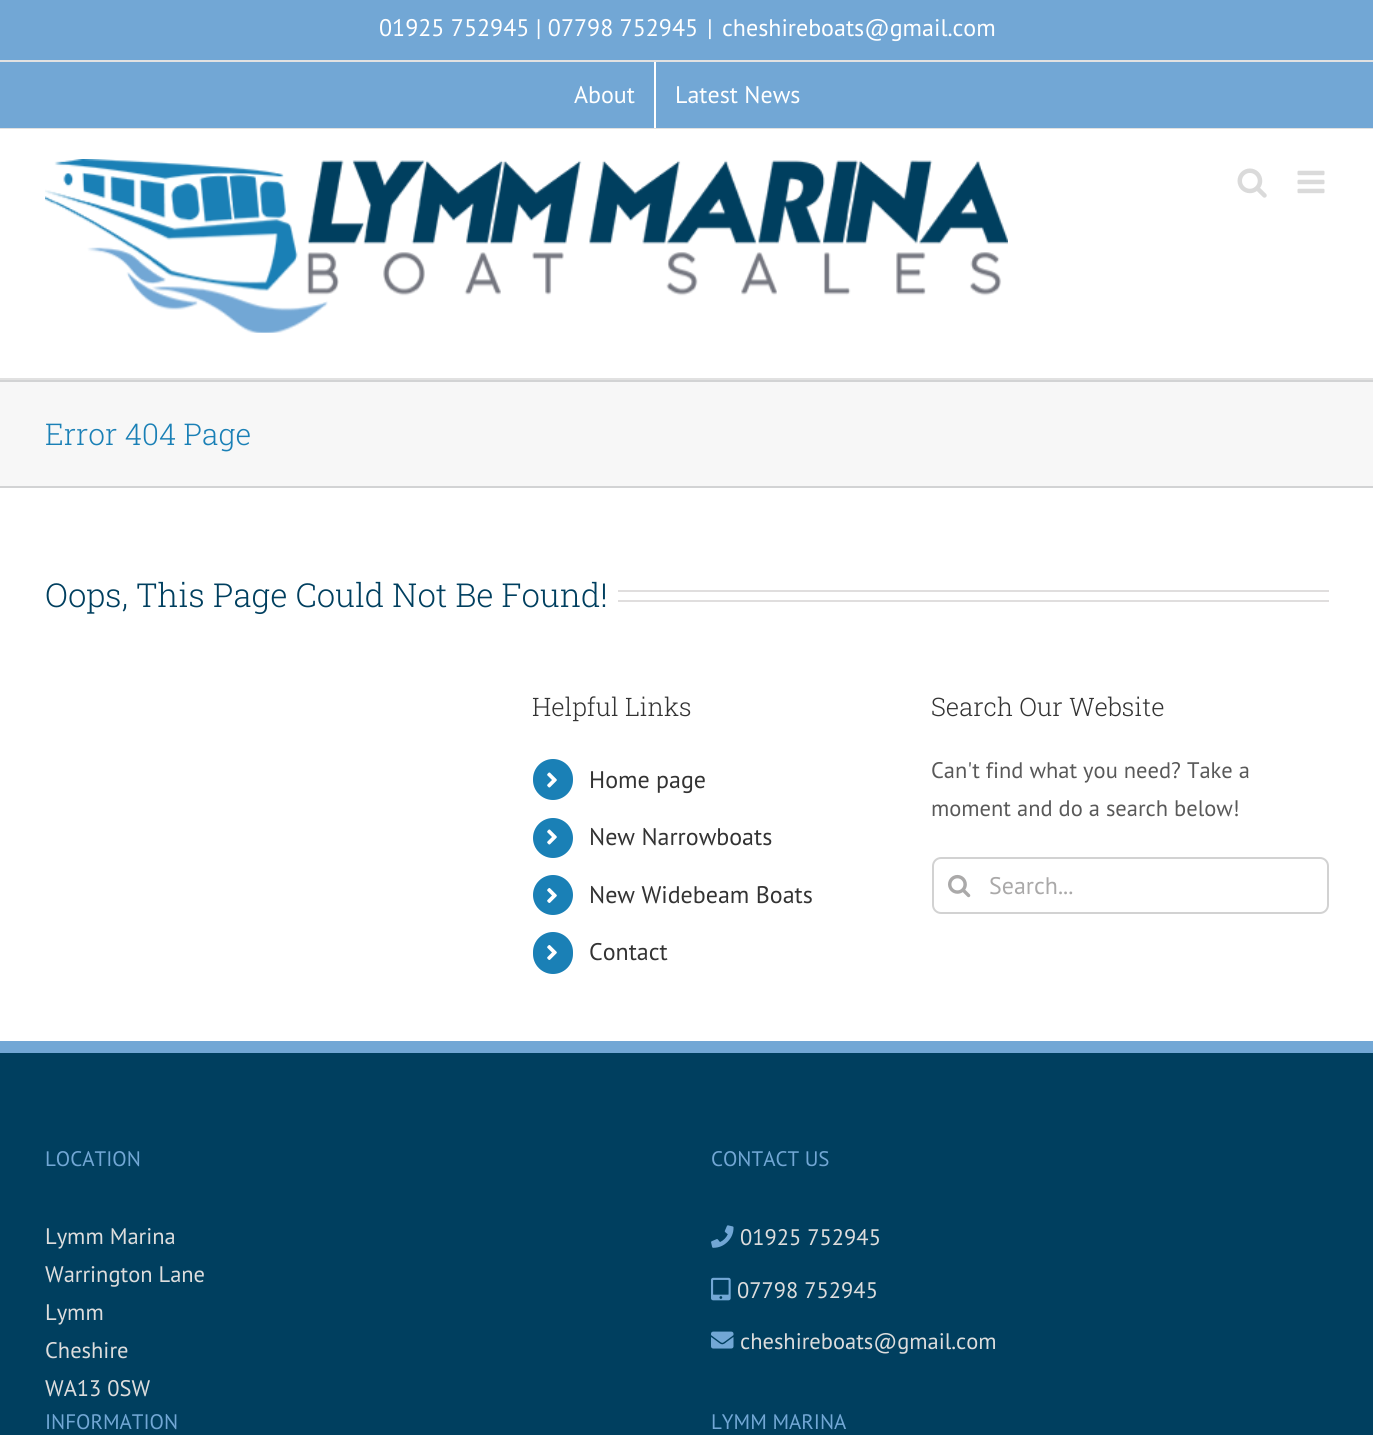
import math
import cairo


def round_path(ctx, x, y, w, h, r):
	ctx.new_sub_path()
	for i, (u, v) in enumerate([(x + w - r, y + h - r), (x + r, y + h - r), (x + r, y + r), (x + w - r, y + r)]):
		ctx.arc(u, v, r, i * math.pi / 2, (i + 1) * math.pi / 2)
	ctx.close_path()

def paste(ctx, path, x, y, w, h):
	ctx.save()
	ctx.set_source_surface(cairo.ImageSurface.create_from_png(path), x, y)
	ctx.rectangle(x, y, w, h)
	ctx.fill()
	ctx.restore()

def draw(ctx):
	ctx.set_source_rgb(1, 1, 1)
	ctx.paint()
	ctx.set_source_rgb(0.447, 0.655, 0.835)
	ctx.rectangle(0, 0, 1373, 128)
	ctx.fill()
	ctx.set_source_rgb(0.882, 0.882, 0.882)
	ctx.rectangle(0, 128, 1373, 1)
	ctx.rectangle(0, 60, 1373, 2)
	ctx.fill()
	ctx.select_font_face('PT Sans')
	ctx.set_font_size(24)
	ctx.set_source_rgb(1, 1, 1)
	for x, y, s in [
		(379, 36, '01925 752945 | 07798 752945'),
		(707, 36, '|'),
		(722, 36, 'cheshireboats@gmail.com'),
		(574, 103, 'About'),
	]:
		ctx.move_to(x, y)
		ctx.show_text(s)
	ctx.rectangle(654, 62, 2, 66)
	ctx.fill()
	ctx.move_to(675, 103)
	ctx.show_text('Latest News')
	ctx.set_source_rgb(0.882, 0.882, 0.882)
	ctx.rectangle(0, 378, 1373, 2)
	ctx.fill()
	paste(ctx, 'media/1.png', 45, 159, 963, 174)
	paste(ctx, 'media/2.png', 1237, 168, 30, 30)
	paste(ctx, 'media/3.png', 1297, 170, 28, 24)
	ctx.set_source_rgb(0.965, 0.965, 0.965)
	ctx.rectangle(0, 382, 1373, 104)
	ctx.fill()
	ctx.set_source_rgb(0.824, 0.827, 0.831)
	ctx.rectangle(0, 380, 1373, 2)
	ctx.rectangle(0, 486, 1373, 2)
	ctx.fill()
	ctx.select_font_face('Roboto Slab Light')
	ctx.set_font_size(30)
	ctx.set_source_rgb(0.102, 0.502, 0.714)
	ctx.move_to(45, 445)
	ctx.show_text('Error 404 Page')
	ctx.set_font_size(33)
	ctx.set_source_rgb(0, 0.247, 0.373)
	ctx.move_to(45, 607)
	ctx.show_text('Oops, This Page Could Not Be Found!')
	ctx.set_source_rgb(0.878, 0.871, 0.871)
	ctx.rectangle(618, 590, 711, 2)
	ctx.fill()
	ctx.rectangle(618, 600, 711, 2)
	ctx.fill()
	ctx.set_font_size(25.5)
	ctx.set_source_rgb(0.2, 0.2, 0.2)
	ctx.move_to(532, 716)
	ctx.show_text('Helpful Links')
	ctx.set_source_rgb(0.102, 0.502, 0.714)
	round_path(ctx, 533, 759, 40, 41, 20)
	ctx.fill()
	paste(ctx, 'media/4.png', 547, 772, 10, 16)
	ctx.select_font_face('PT Sans')
	ctx.set_font_size(24)
	ctx.set_source_rgb(0.2, 0.2, 0.2)
	ctx.move_to(589, 788)
	ctx.show_text('Home page')
	ctx.set_source_rgb(0.102, 0.502, 0.714)
	ctx.new_path()
	ctx.arc(553, 838, 20, 0, 2 * math.pi)
	ctx.fill()
	paste(ctx, 'media/4.png', 547, 829, 10, 16)
	ctx.set_source_rgb(0.2, 0.2, 0.2)
	ctx.move_to(589, 845)
	ctx.show_text('New Narrowboats')
	ctx.set_source_rgb(0.102, 0.502, 0.714)
	ctx.new_path()
	ctx.arc(553, 895, 20, 0, 2 * math.pi)
	ctx.fill()
	paste(ctx, 'media/5.png', 547, 888, 10, 15)
	ctx.set_source_rgb(0.2, 0.2, 0.2)
	ctx.move_to(589, 903)
	ctx.show_text('New Widebeam Boats')
	ctx.set_source_rgb(0.102, 0.502, 0.714)
	round_path(ctx, 533, 932, 40, 42, 20)
	ctx.fill()
	paste(ctx, 'media/5.png', 547, 945, 10, 15)
	ctx.set_source_rgb(0.2, 0.2, 0.2)
	ctx.move_to(589, 960)
	ctx.show_text('Contact')
	ctx.select_font_face('Roboto Slab Light')
	ctx.set_font_size(25.5)
	ctx.move_to(931, 716)
	ctx.show_text('Search Our Website')
	ctx.select_font_face('PT Sans')
	ctx.set_font_size(22.5)
	ctx.set_source_rgb(0.349, 0.349, 0.349)
	ctx.move_to(931, 778)
	ctx.show_text('Can\'t find what you need? Take a')
	ctx.move_to(931, 816)
	ctx.show_text('moment and do a search below!')
	round_path(ctx, 933, 858, 395, 55, 8)
	ctx.set_source_rgb(0.824, 0.824, 0.824)
	ctx.stroke()
	paste(ctx, 'media/6.png', 948, 874, 23, 24)
	ctx.set_font_size(24)
	ctx.set_source_rgb(0.667, 0.663, 0.663)
	ctx.move_to(989, 894)
	ctx.show_text('Search...')
	ctx.set_source_rgb(0, 0.247, 0.373)
	ctx.rectangle(0, 1053, 1373, 382)
	ctx.fill()
	ctx.set_source_rgb(0.447, 0.655, 0.835)
	ctx.rectangle(0, 1041, 1373, 12)
	ctx.fill()
	ctx.set_font_size(21)
	ctx.move_to(45, 1166)
	ctx.show_text('LOCATION')
	ctx.set_font_size(22.5)
	ctx.set_source_rgb(0.867, 0.867, 0.867)
	for x, y, s in [
		(45, 1244, 'Lymm Marina'),
		(45, 1282, 'Warrington Lane'),
		(45, 1320, 'Lymm'),
		(45, 1358, 'Cheshire'),
		(45, 1396, 'WA13 0SW'),
	]:
		ctx.move_to(x, y)
		ctx.show_text(s)
	ctx.set_font_size(21)
	ctx.set_source_rgb(0.447, 0.655, 0.835)
	ctx.move_to(711, 1166)
	ctx.show_text('CONTACT US')
	paste(ctx, 'media/7.png', 711, 1225, 23, 23)
	ctx.set_font_size(22.5)
	ctx.set_source_rgb(0.867, 0.867, 0.867)
	ctx.move_to(740, 1245)
	ctx.show_text('01925 752945')
	paste(ctx, 'media/8.png', 711, 1277, 20, 24)
	ctx.move_to(737, 1298)
	ctx.show_text('07798 752945')
	paste(ctx, 'media/9.png', 711, 1331, 23, 18)
	ctx.move_to(740, 1349)
	ctx.show_text('cheshireboats@gmail.com')
	ctx.set_font_size(21)
	ctx.set_source_rgb(0.447, 0.655, 0.835)
	ctx.move_to(45, 1429)
	ctx.show_text('INFORMATION')
	ctx.move_to(711, 1429)
	ctx.show_text('LYMM MARINA')


surface = cairo.ImageSurface(cairo.FORMAT_RGB24, 1373, 1435)
ctx = cairo.Context(surface)
options = cairo.FontOptions()
options.set_hint_metrics(cairo.HINT_METRICS_OFF)
options.set_hint_style(cairo.HINT_STYLE_NONE)
ctx.set_font_options(options)
ctx.set_miter_limit(4)
draw(ctx)
surface.write_to_png('image.png')
